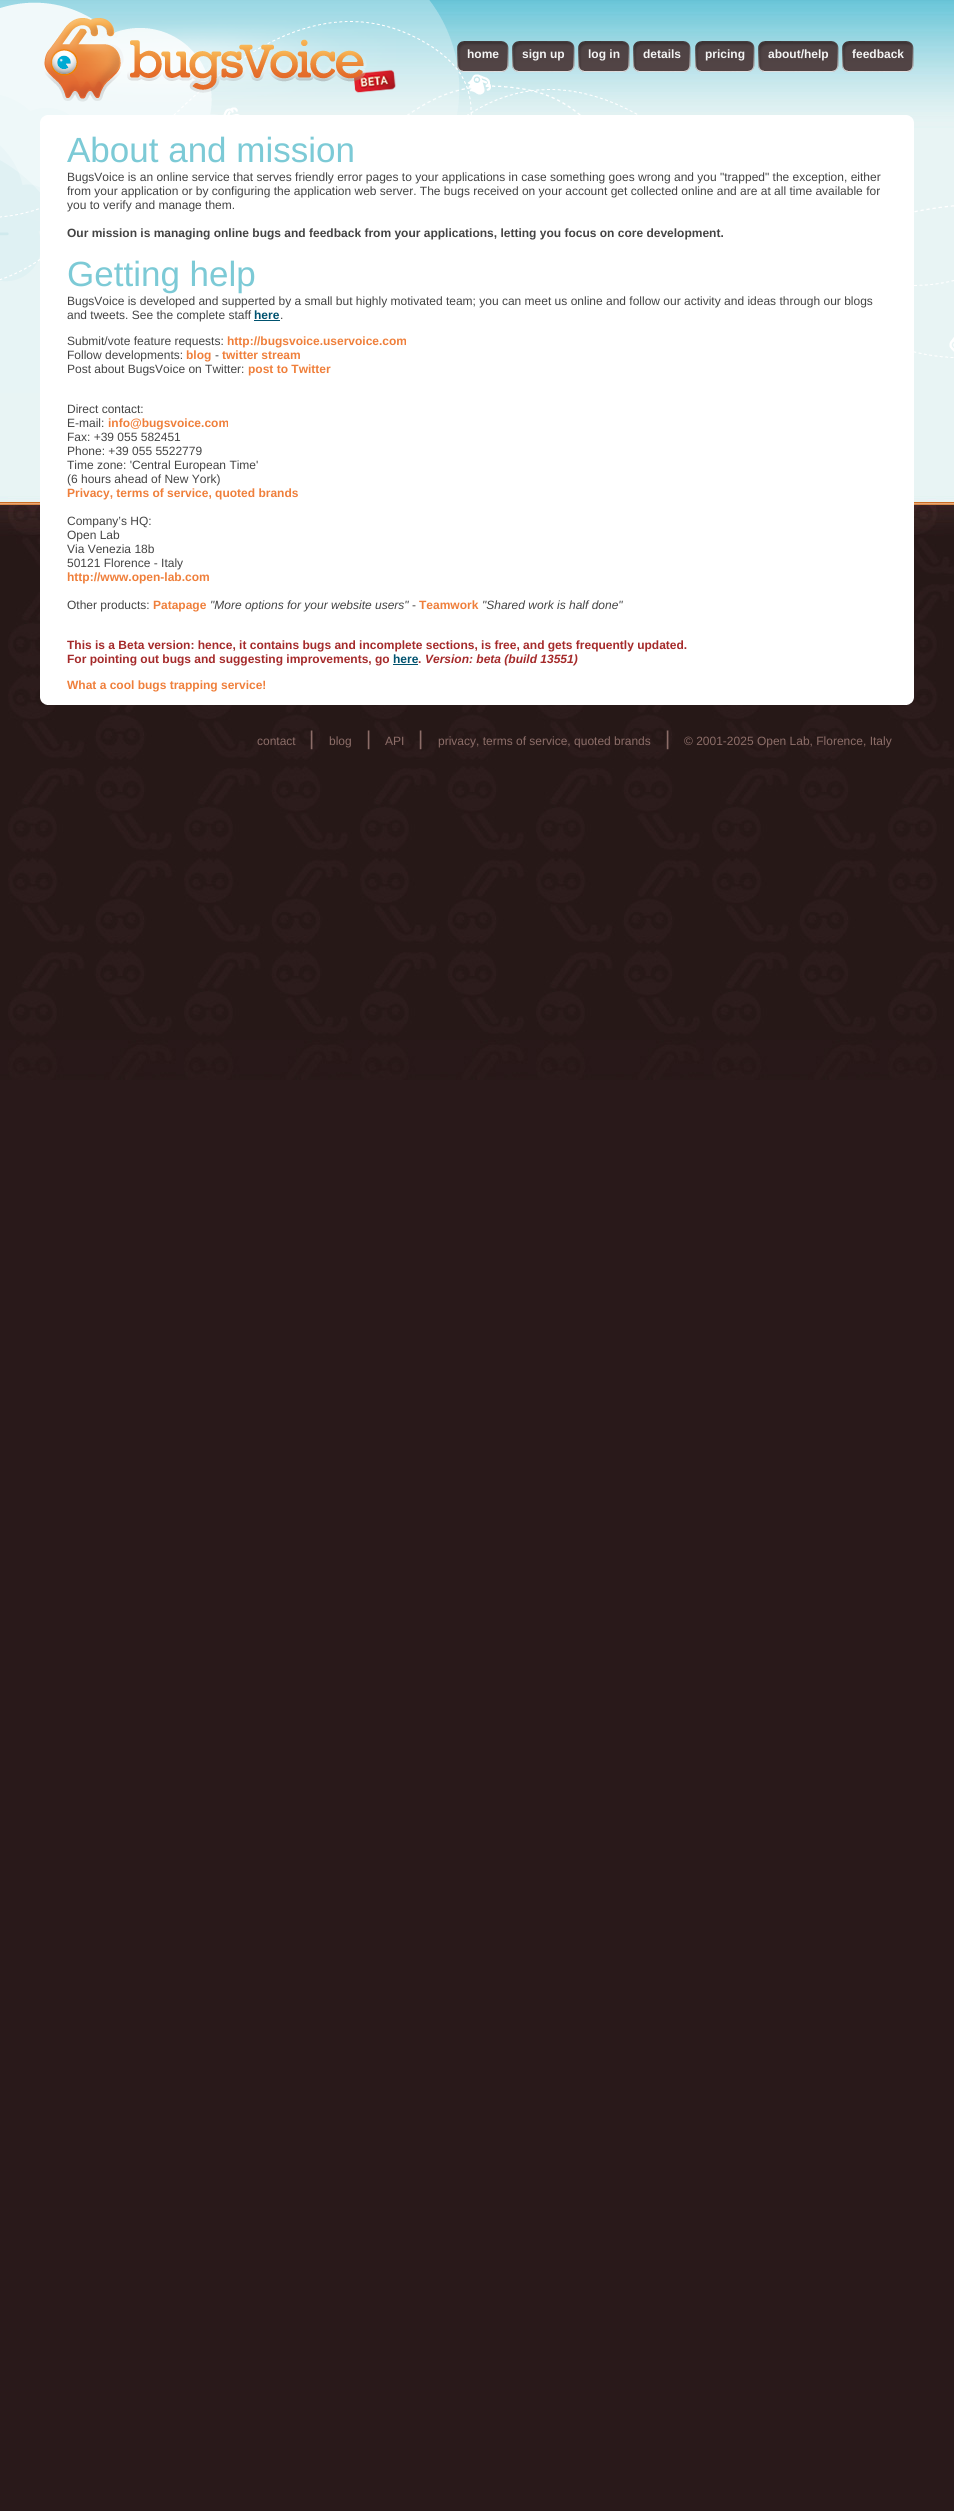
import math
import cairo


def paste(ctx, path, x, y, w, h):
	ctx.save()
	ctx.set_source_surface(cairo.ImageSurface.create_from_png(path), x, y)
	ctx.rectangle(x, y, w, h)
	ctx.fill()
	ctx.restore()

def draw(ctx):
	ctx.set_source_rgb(0.161, 0.098, 0.102)
	ctx.paint()
	paste(ctx, 'media/1.png', 0, 0, 954, 1080)
	paste(ctx, 'media/2.png', 0, 0, 954, 394)
	paste(ctx, 'media/3.png', 44, 18, 352, 84)
	paste(ctx, 'media/4.png', 499, 41, 10, 31)
	paste(ctx, 'media/5.png', 457, 41, 42, 31)
	ctx.select_font_face('Liberation Sans', cairo.FONT_SLANT_NORMAL, cairo.FONT_WEIGHT_BOLD)
	ctx.set_font_size(12)
	ctx.set_source_rgb(0.957, 0.957, 0.957)
	ctx.move_to(467, 58)
	ctx.show_text('home')
	paste(ctx, 'media/4.png', 565, 41, 10, 31)
	paste(ctx, 'media/6.png', 512, 41, 53, 31)
	ctx.move_to(522, 58)
	ctx.show_text('sign up')
	paste(ctx, 'media/4.png', 620, 41, 10, 31)
	paste(ctx, 'media/7.png', 578, 41, 42, 31)
	ctx.move_to(588, 58)
	ctx.show_text('log in')
	paste(ctx, 'media/4.png', 681, 41, 10, 31)
	paste(ctx, 'media/8.png', 633, 41, 48, 31)
	ctx.move_to(643, 58)
	ctx.show_text('details')
	paste(ctx, 'media/4.png', 745, 41, 10, 31)
	paste(ctx, 'media/9.png', 695, 41, 50, 31)
	ctx.move_to(705, 58)
	ctx.show_text('pricing')
	paste(ctx, 'media/4.png', 829, 41, 10, 31)
	paste(ctx, 'media/10.png', 758, 41, 71, 31)
	ctx.move_to(768, 58)
	ctx.show_text('about/help')
	paste(ctx, 'media/4.png', 904, 41, 10, 31)
	paste(ctx, 'media/11.png', 842, 41, 62, 31)
	ctx.move_to(852, 58)
	ctx.show_text('feedback')
	paste(ctx, 'media/12.png', 40, 115, 7, 10)
	ctx.set_source_rgb(1, 1, 1)
	ctx.rectangle(47, 115, 857, 10)
	ctx.fill()
	paste(ctx, 'media/13.png', 904, 115, 10, 10)
	ctx.rectangle(40, 125, 874, 567)
	ctx.fill()
	ctx.select_font_face('Liberation Sans')
	ctx.set_font_size(35)
	ctx.set_source_rgb(0.486, 0.792, 0.839)
	ctx.move_to(67, 162)
	ctx.show_text('About and mission')
	ctx.set_font_size(12)
	ctx.set_source_rgb(0.267, 0.267, 0.267)
	for x, y, s in [
		(67, 181, 'BugsVoice is an online service that serves friendly error pages to your applications in case something goes wrong and you "trapped" the exception, either'),
		(67, 195, 'from your application or by configuring the application web server. The bugs received on your account get collected online and are at all time available for'),
		(67, 209, 'you to verify and manage them.'),
	]:
		ctx.move_to(x, y)
		ctx.show_text(s)
	ctx.select_font_face('Liberation Sans', cairo.FONT_SLANT_NORMAL, cairo.FONT_WEIGHT_BOLD)
	ctx.move_to(67, 237)
	ctx.show_text('Our mission is managing online bugs and feedback from your applications, letting you focus on core development.')
	ctx.select_font_face('Liberation Sans')
	ctx.set_font_size(35)
	ctx.set_source_rgb(0.486, 0.792, 0.839)
	ctx.move_to(67, 286)
	ctx.show_text('Getting help')
	ctx.set_font_size(12)
	ctx.set_source_rgb(0.267, 0.267, 0.267)
	ctx.move_to(67, 305)
	ctx.show_text('BugsVoice is developed and supperted by a small but highly motivated team; you can meet us online and follow our activity and ideas through our blogs')
	ctx.move_to(67, 319)
	ctx.show_text('and tweets. See the complete staff')
	ctx.select_font_face('Liberation Sans', cairo.FONT_SLANT_NORMAL, cairo.FONT_WEIGHT_BOLD)
	ctx.set_source_rgb(0, 0.322, 0.435)
	ctx.move_to(254, 319)
	ctx.show_text('here')
	ctx.rectangle(254, 320, 26, 1)
	ctx.fill()
	ctx.select_font_face('Liberation Sans')
	ctx.set_source_rgb(0.267, 0.267, 0.267)
	ctx.move_to(280, 319)
	ctx.show_text('.')
	ctx.move_to(67, 345)
	ctx.show_text('Submit/vote feature requests:')
	ctx.select_font_face('Liberation Sans', cairo.FONT_SLANT_NORMAL, cairo.FONT_WEIGHT_BOLD)
	ctx.set_source_rgb(0.937, 0.498, 0.231)
	ctx.move_to(227, 345)
	ctx.show_text('http://bugsvoice.uservoice.com')
	ctx.select_font_face('Liberation Sans')
	ctx.set_source_rgb(0.267, 0.267, 0.267)
	ctx.move_to(67, 359)
	ctx.show_text('Follow developments:')
	ctx.select_font_face('Liberation Sans', cairo.FONT_SLANT_NORMAL, cairo.FONT_WEIGHT_BOLD)
	ctx.set_source_rgb(0.937, 0.498, 0.231)
	ctx.move_to(186, 359)
	ctx.show_text('blog')
	ctx.select_font_face('Liberation Sans')
	ctx.set_source_rgb(0.267, 0.267, 0.267)
	ctx.move_to(215, 359)
	ctx.show_text('-')
	ctx.select_font_face('Liberation Sans', cairo.FONT_SLANT_NORMAL, cairo.FONT_WEIGHT_BOLD)
	ctx.set_source_rgb(0.937, 0.498, 0.231)
	ctx.move_to(222, 359)
	ctx.show_text('twitter stream')
	ctx.select_font_face('Liberation Sans')
	ctx.set_source_rgb(0.267, 0.267, 0.267)
	ctx.move_to(67, 373)
	ctx.show_text('Post about BugsVoice on Twitter:')
	ctx.select_font_face('Liberation Sans', cairo.FONT_SLANT_NORMAL, cairo.FONT_WEIGHT_BOLD)
	ctx.set_source_rgb(0.937, 0.498, 0.231)
	ctx.move_to(248, 373)
	ctx.show_text('post to Twitter')
	ctx.select_font_face('Liberation Sans')
	ctx.set_source_rgb(0.267, 0.267, 0.267)
	ctx.move_to(67, 413)
	ctx.show_text('Direct contact:')
	ctx.move_to(67, 427)
	ctx.show_text('E-mail:')
	ctx.select_font_face('Liberation Sans', cairo.FONT_SLANT_NORMAL, cairo.FONT_WEIGHT_BOLD)
	ctx.set_source_rgb(0.937, 0.498, 0.231)
	ctx.move_to(108, 427)
	ctx.show_text('info@bugsvoice.com')
	ctx.select_font_face('Liberation Sans')
	ctx.set_source_rgb(0.267, 0.267, 0.267)
	for x, y, s in [
		(67, 441, 'Fax: +39 055 582451'),
		(67, 455, 'Phone: +39 055 5522779'),
		(67, 469, 'Time zone: \'Central European Time\''),
		(67, 483, '(6 hours ahead of New York)'),
	]:
		ctx.move_to(x, y)
		ctx.show_text(s)
	ctx.select_font_face('Liberation Sans', cairo.FONT_SLANT_NORMAL, cairo.FONT_WEIGHT_BOLD)
	ctx.set_source_rgb(0.937, 0.498, 0.231)
	ctx.move_to(67, 497)
	ctx.show_text('Privacy, terms of service, quoted brands')
	ctx.select_font_face('Liberation Sans')
	ctx.set_source_rgb(0.267, 0.267, 0.267)
	for x, y, s in [
		(67, 525, 'Company’s HQ:'),
		(67, 539, 'Open Lab'),
		(67, 553, 'Via Venezia 18b'),
		(67, 567, '50121 Florence - Italy'),
	]:
		ctx.move_to(x, y)
		ctx.show_text(s)
	ctx.select_font_face('Liberation Sans', cairo.FONT_SLANT_NORMAL, cairo.FONT_WEIGHT_BOLD)
	ctx.set_source_rgb(0.937, 0.498, 0.231)
	ctx.move_to(67, 581)
	ctx.show_text('http://www.open-lab.com')
	ctx.select_font_face('Liberation Sans')
	ctx.set_source_rgb(0.267, 0.267, 0.267)
	ctx.move_to(67, 609)
	ctx.show_text('Other products:')
	ctx.select_font_face('Liberation Sans', cairo.FONT_SLANT_NORMAL, cairo.FONT_WEIGHT_BOLD)
	ctx.set_source_rgb(0.937, 0.498, 0.231)
	ctx.move_to(153, 609)
	ctx.show_text('Patapage')
	ctx.select_font_face('Liberation Sans', cairo.FONT_SLANT_ITALIC)
	ctx.set_source_rgb(0.267, 0.267, 0.267)
	ctx.move_to(210, 609)
	ctx.show_text('"More options for your website users"')
	ctx.select_font_face('Liberation Sans')
	ctx.move_to(412, 609)
	ctx.show_text('-')
	ctx.select_font_face('Liberation Sans', cairo.FONT_SLANT_NORMAL, cairo.FONT_WEIGHT_BOLD)
	ctx.set_source_rgb(0.937, 0.498, 0.231)
	ctx.move_to(419, 609)
	ctx.show_text('Teamwork')
	ctx.select_font_face('Liberation Sans', cairo.FONT_SLANT_ITALIC)
	ctx.set_source_rgb(0.267, 0.267, 0.267)
	ctx.move_to(482, 609)
	ctx.show_text('"Shared work is half done"')
	ctx.select_font_face('Liberation Sans', cairo.FONT_SLANT_NORMAL, cairo.FONT_WEIGHT_BOLD)
	ctx.set_source_rgb(0.647, 0.165, 0.165)
	ctx.move_to(67, 649)
	ctx.show_text('This is a Beta version: hence, it contains bugs and incomplete sections, is free, and gets frequently updated.')
	ctx.move_to(67, 663)
	ctx.show_text('For pointing out bugs and suggesting improvements, go')
	ctx.set_source_rgb(0, 0.322, 0.435)
	ctx.move_to(393, 663)
	ctx.show_text('here')
	ctx.rectangle(393, 664, 25, 1)
	ctx.fill()
	ctx.set_source_rgb(0.647, 0.165, 0.165)
	ctx.move_to(418, 663)
	ctx.show_text('.')
	ctx.select_font_face('Liberation Sans', cairo.FONT_SLANT_ITALIC, cairo.FONT_WEIGHT_BOLD)
	ctx.move_to(425, 663)
	ctx.show_text('Version: beta (build 13551)')
	ctx.select_font_face('Liberation Sans', cairo.FONT_SLANT_NORMAL, cairo.FONT_WEIGHT_BOLD)
	ctx.set_source_rgb(0.937, 0.498, 0.231)
	ctx.move_to(67, 689)
	ctx.show_text('What a cool bugs trapping service!')
	paste(ctx, 'media/14.png', 40, 692, 7, 13)
	ctx.set_source_rgb(1, 1, 1)
	ctx.rectangle(47, 692, 857, 13)
	ctx.fill()
	paste(ctx, 'media/15.png', 904, 692, 10, 13)
	ctx.select_font_face('Liberation Sans')
	ctx.set_source_rgb(0.549, 0.427, 0.408)
	ctx.move_to(257, 745)
	ctx.show_text('contact')
	ctx.set_font_size(20)
	ctx.move_to(309, 745)
	ctx.show_text('|')
	ctx.set_font_size(12)
	ctx.move_to(329, 745)
	ctx.show_text('blog')
	ctx.set_font_size(20)
	ctx.move_to(366, 745)
	ctx.show_text('|')
	ctx.set_font_size(12)
	ctx.move_to(385, 745)
	ctx.show_text('API')
	ctx.set_font_size(20)
	ctx.move_to(418, 745)
	ctx.show_text('|')
	ctx.set_font_size(12)
	ctx.move_to(438, 745)
	ctx.show_text('privacy, terms of service, quoted brands')
	ctx.set_font_size(20)
	ctx.move_to(665, 745)
	ctx.show_text('|')
	ctx.set_font_size(12)
	ctx.move_to(684, 745)
	ctx.show_text('© 2001-2025 Open Lab, Florence, Italy')


surface = cairo.ImageSurface(cairo.FORMAT_RGB24, 954, 2511)
ctx = cairo.Context(surface)
options = cairo.FontOptions()
options.set_hint_metrics(cairo.HINT_METRICS_OFF)
options.set_hint_style(cairo.HINT_STYLE_NONE)
ctx.set_font_options(options)
ctx.set_miter_limit(4)
draw(ctx)
surface.write_to_png('image.png')
